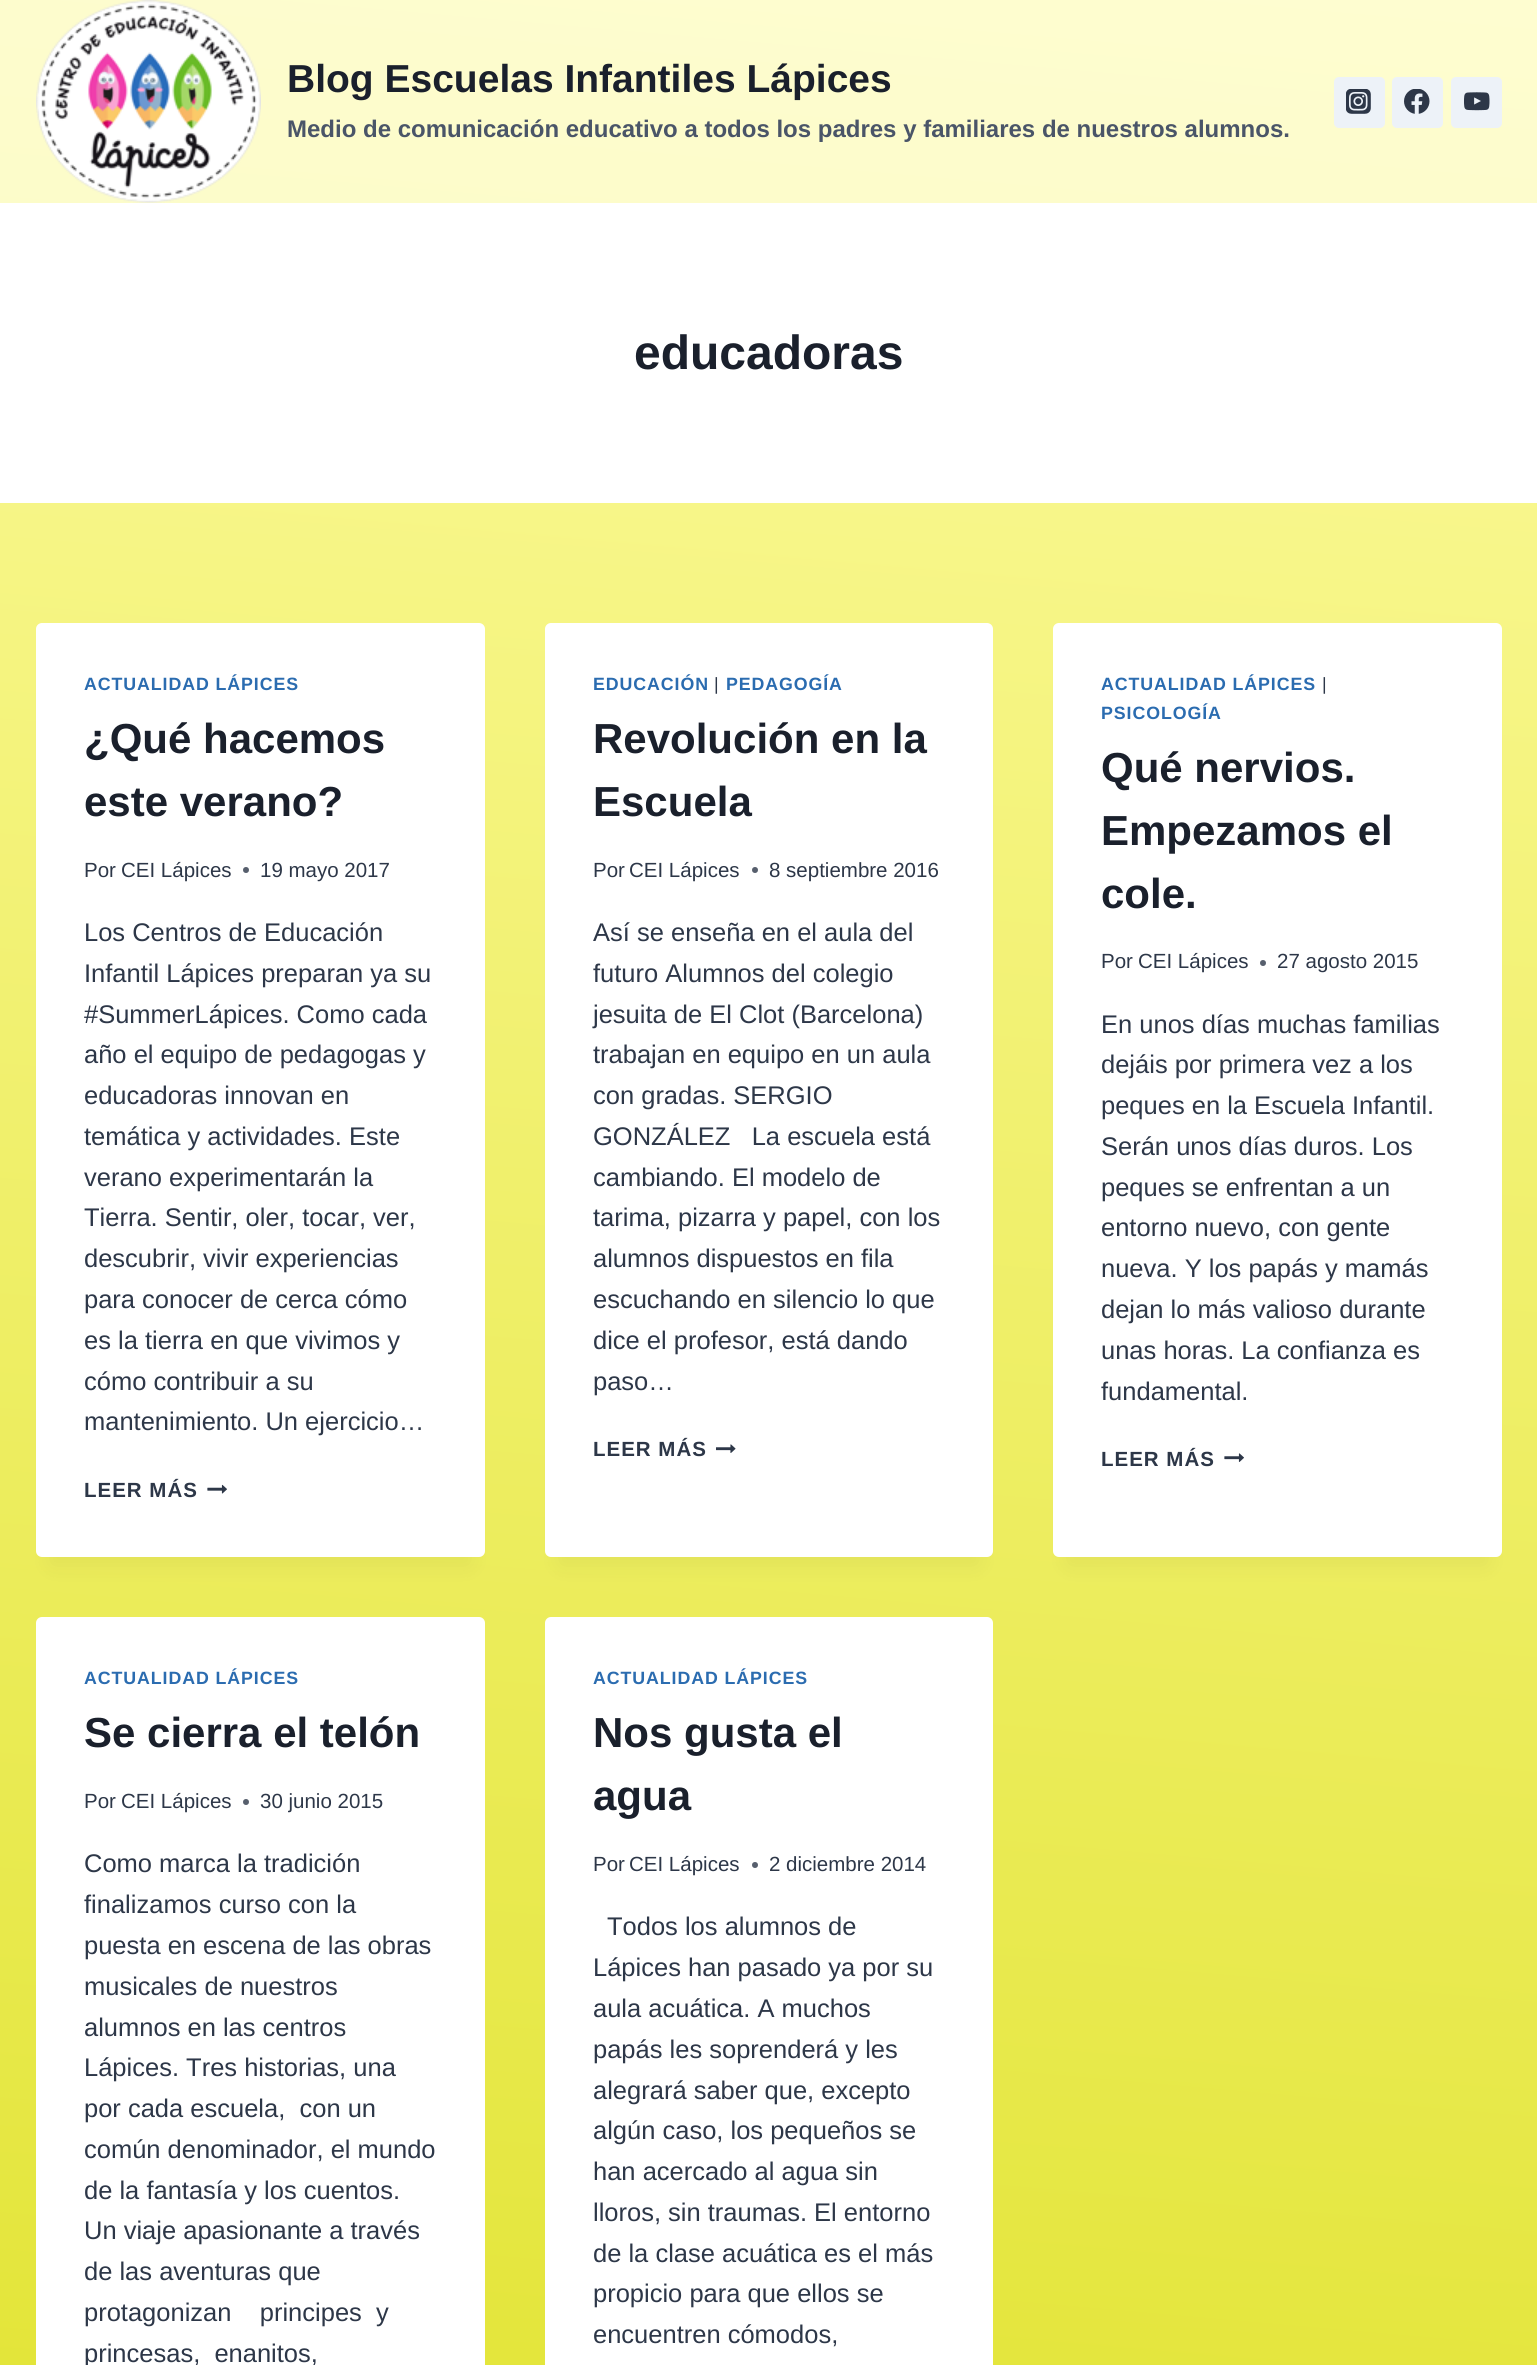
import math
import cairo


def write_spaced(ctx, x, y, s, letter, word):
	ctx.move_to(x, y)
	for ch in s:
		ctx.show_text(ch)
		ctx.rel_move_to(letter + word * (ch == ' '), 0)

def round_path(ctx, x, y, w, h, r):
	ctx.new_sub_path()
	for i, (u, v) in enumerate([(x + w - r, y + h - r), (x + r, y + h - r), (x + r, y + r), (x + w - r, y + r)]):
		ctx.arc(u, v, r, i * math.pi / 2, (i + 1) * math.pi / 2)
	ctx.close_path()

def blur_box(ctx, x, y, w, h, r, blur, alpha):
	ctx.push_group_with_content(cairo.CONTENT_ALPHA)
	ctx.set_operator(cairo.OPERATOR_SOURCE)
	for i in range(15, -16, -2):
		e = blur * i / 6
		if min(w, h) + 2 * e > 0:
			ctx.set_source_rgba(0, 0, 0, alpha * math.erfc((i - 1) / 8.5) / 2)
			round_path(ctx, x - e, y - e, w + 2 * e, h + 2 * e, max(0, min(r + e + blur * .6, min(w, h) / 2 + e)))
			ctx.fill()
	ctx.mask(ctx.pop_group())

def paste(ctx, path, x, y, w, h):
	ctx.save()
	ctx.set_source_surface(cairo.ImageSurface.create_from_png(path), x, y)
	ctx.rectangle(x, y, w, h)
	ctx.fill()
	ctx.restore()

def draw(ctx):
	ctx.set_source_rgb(1, 1, 1)
	ctx.paint()
	gradient = cairo.LinearGradient(634, 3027, 904, -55)
	gradient.add_color_stop_rgba(0, 0.867, 0.878, 0.129, 1)
	gradient.add_color_stop_rgba(1, 0.992, 0.984, 0.627, 1)
	ctx.set_source(gradient)
	ctx.rectangle(0, 503, 1537, 1862)
	ctx.fill()
	gradient = cairo.LinearGradient(634, 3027, 904, -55)
	gradient.add_color_stop_rgba(0, 0.933, 0.941, 0.573, 1)
	gradient.add_color_stop_rgba(1, 0.996, 0.992, 0.816, 1)
	ctx.set_source(gradient)
	ctx.rectangle(0, 0, 1537, 203)
	ctx.fill()
	paste(ctx, 'media/1.png', 36, 0, 225, 203)
	ctx.select_font_face('Liberation Sans', cairo.FONT_SLANT_NORMAL, cairo.FONT_WEIGHT_BOLD)
	ctx.set_font_size(39)
	ctx.set_source_rgb(0.102, 0.125, 0.173)
	ctx.move_to(287, 92)
	ctx.show_text('Blog Escuelas Infantiles Lápices')
	ctx.set_font_size(24)
	ctx.set_source_rgb(0.29, 0.333, 0.408)
	ctx.move_to(287, 137)
	ctx.show_text('Medio de comunicación educativo a todos los padres y familiares de nuestros alumnos.')
	ctx.set_source_rgb(0.929, 0.949, 0.969)
	round_path(ctx, 1334, 77, 51, 51, 5)
	ctx.fill()
	paste(ctx, 'media/2.png', 1346, 89, 25, 25)
	round_path(ctx, 1392, 77, 51, 51, 5)
	ctx.fill()
	paste(ctx, 'media/3.png', 1404, 89, 26, 25)
	round_path(ctx, 1451, 77, 51, 51, 5)
	ctx.fill()
	paste(ctx, 'media/4.png', 1464, 92, 26, 19)
	ctx.set_font_size(48)
	ctx.set_source_rgb(0.102, 0.125, 0.173)
	ctx.move_to(634, 369)
	ctx.show_text('educadoras')
	ctx.set_source_rgb(0, 0, 0)
	blur_box(ctx, 51, 660, 419, 905, 0, 11, 0.05)
	ctx.set_source_rgb(1, 1, 1)
	round_path(ctx, 36, 623, 449, 934, 6)
	ctx.fill()
	ctx.set_font_size(17.8)
	ctx.set_source_rgb(0.169, 0.424, 0.69)
	write_spaced(ctx, 84, 690, 'ACTUALIDAD LÁPICES', 0.9, 0)
	ctx.set_font_size(42)
	ctx.set_source_rgb(0.102, 0.125, 0.173)
	ctx.move_to(84, 753)
	ctx.show_text('¿Qué hacemos')
	ctx.move_to(84, 816)
	ctx.show_text('este verano?')
	ctx.select_font_face('Liberation Sans')
	ctx.set_font_size(20.5)
	ctx.set_source_rgb(0.176, 0.216, 0.282)
	ctx.move_to(84, 877)
	ctx.show_text('Por')
	ctx.move_to(121, 877)
	ctx.show_text('CEI Lápices')
	ctx.set_source_rgb(0.341, 0.373, 0.427)
	ctx.new_path()
	ctx.arc(246, 870, 3, 0, 2 * math.pi)
	ctx.fill()
	ctx.set_source_rgb(0.176, 0.216, 0.282)
	ctx.move_to(260, 877)
	ctx.show_text('19 mayo 2017')
	ctx.set_font_size(25.5)
	for x, y, s in [
		(84, 941, 'Los Centros de Educación'),
		(84, 982, 'Infantil Lápices preparan ya su'),
		(84, 1023, '#SummerLápices. Como cada'),
		(84, 1063, 'año el equipo de pedagogas y'),
		(84, 1104, 'educadoras innovan en'),
		(84, 1145, 'temática y actividades. Este'),
		(84, 1186, 'verano experimentarán la'),
		(84, 1226, 'Tierra. Sentir, oler, tocar, ver,'),
		(84, 1267, 'descubrir, vivir experiencias'),
		(84, 1308, 'para conocer de cerca cómo'),
		(84, 1349, 'es la tierra en que vivimos y'),
		(84, 1390, 'cómo contribuir a su'),
		(84, 1430, 'mantenimiento. Un ejercicio…'),
	]:
		ctx.move_to(x, y)
		ctx.show_text(s)
	ctx.select_font_face('Liberation Sans', cairo.FONT_SLANT_NORMAL, cairo.FONT_WEIGHT_BOLD)
	ctx.set_font_size(20.5)
	write_spaced(ctx, 84, 1497, 'LEER MÁS', 1, 0)
	paste(ctx, 'media/5.png', 207, 1484, 20, 10)
	ctx.set_source_rgb(0, 0, 0)
	blur_box(ctx, 560, 660, 418, 905, 0, 11, 0.05)
	ctx.set_source_rgb(1, 1, 1)
	round_path(ctx, 545, 623, 448, 934, 6)
	ctx.fill()
	ctx.set_font_size(17.8)
	ctx.set_source_rgb(0.169, 0.424, 0.69)
	write_spaced(ctx, 593, 690, 'EDUCACIÓN', 0.9, 0)
	ctx.select_font_face('Liberation Sans')
	ctx.set_source_rgb(0.176, 0.216, 0.282)
	write_spaced(ctx, 714, 690, '|', 0.9, 0)
	ctx.select_font_face('Liberation Sans', cairo.FONT_SLANT_NORMAL, cairo.FONT_WEIGHT_BOLD)
	ctx.set_source_rgb(0.169, 0.424, 0.69)
	write_spaced(ctx, 726, 690, 'PEDAGOGÍA', 0.9, 0)
	ctx.set_font_size(42)
	ctx.set_source_rgb(0.102, 0.125, 0.173)
	ctx.move_to(593, 753)
	ctx.show_text('Revolución en la')
	ctx.move_to(593, 816)
	ctx.show_text('Escuela')
	ctx.select_font_face('Liberation Sans')
	ctx.set_font_size(20.5)
	ctx.set_source_rgb(0.176, 0.216, 0.282)
	ctx.move_to(593, 877)
	ctx.show_text('Por')
	ctx.move_to(629, 877)
	ctx.show_text('CEI Lápices')
	ctx.set_source_rgb(0.341, 0.373, 0.427)
	ctx.new_path()
	ctx.arc(755, 870, 3, 0, 2 * math.pi)
	ctx.fill()
	ctx.set_source_rgb(0.176, 0.216, 0.282)
	ctx.move_to(769, 877)
	ctx.show_text('8 septiembre 2016')
	ctx.set_font_size(25.5)
	for x, y, s in [
		(593, 941, 'Así se enseña en el aula del'),
		(593, 982, 'futuro Alumnos del colegio'),
		(593, 1023, 'jesuita de El Clot (Barcelona)'),
		(593, 1063, 'trabajan en equipo en un aula'),
		(593, 1104, 'con gradas. SERGIO'),
		(593, 1145, 'GONZÁLEZ   La escuela está'),
		(593, 1186, 'cambiando. El modelo de'),
		(593, 1226, 'tarima, pizarra y papel, con los'),
		(593, 1267, 'alumnos dispuestos en fila'),
		(593, 1308, 'escuchando en silencio lo que'),
		(593, 1349, 'dice el profesor, está dando'),
		(593, 1390, 'paso…'),
	]:
		ctx.move_to(x, y)
		ctx.show_text(s)
	ctx.select_font_face('Liberation Sans', cairo.FONT_SLANT_NORMAL, cairo.FONT_WEIGHT_BOLD)
	ctx.set_font_size(20.5)
	write_spaced(ctx, 593, 1456, 'LEER MÁS', 1, 0)
	paste(ctx, 'media/6.png', 716, 1444, 20, 9)
	ctx.set_source_rgb(0, 0, 0)
	blur_box(ctx, 1068, 660, 419, 905, 0, 11, 0.05)
	ctx.set_source_rgb(1, 1, 1)
	round_path(ctx, 1053, 623, 449, 934, 6)
	ctx.fill()
	ctx.set_font_size(17.8)
	ctx.set_source_rgb(0.169, 0.424, 0.69)
	write_spaced(ctx, 1101, 690, 'ACTUALIDAD LÁPICES', 0.9, 0)
	ctx.select_font_face('Liberation Sans')
	ctx.set_source_rgb(0.176, 0.216, 0.282)
	write_spaced(ctx, 1322, 690, '|', 0.9, 0)
	ctx.select_font_face('Liberation Sans', cairo.FONT_SLANT_NORMAL, cairo.FONT_WEIGHT_BOLD)
	ctx.set_source_rgb(0.169, 0.424, 0.69)
	write_spaced(ctx, 1101, 719, 'PSICOLOGÍA', 0.9, 0)
	ctx.set_font_size(42)
	ctx.set_source_rgb(0.102, 0.125, 0.173)
	for x, y, s in [
		(1101, 782, 'Qué nervios.'),
		(1101, 845, 'Empezamos el'),
		(1101, 908, 'cole.'),
	]:
		ctx.move_to(x, y)
		ctx.show_text(s)
	ctx.select_font_face('Liberation Sans')
	ctx.set_font_size(20.5)
	ctx.set_source_rgb(0.176, 0.216, 0.282)
	ctx.move_to(1101, 968)
	ctx.show_text('Por')
	ctx.move_to(1138, 968)
	ctx.show_text('CEI Lápices')
	ctx.set_source_rgb(0.341, 0.373, 0.427)
	ctx.new_path()
	ctx.arc(1263, 963, 3, 0, 2 * math.pi)
	ctx.fill()
	ctx.set_source_rgb(0.176, 0.216, 0.282)
	ctx.move_to(1277, 968)
	ctx.show_text('27 agosto 2015')
	ctx.set_font_size(25.5)
	for x, y, s in [
		(1101, 1033, 'En unos días muchas familias'),
		(1101, 1073, 'dejáis por primera vez a los'),
		(1101, 1114, 'peques en la Escuela Infantil.'),
		(1101, 1155, 'Serán unos días duros. Los'),
		(1101, 1196, 'peques se enfrentan a un'),
		(1101, 1236, 'entorno nuevo, con gente'),
		(1101, 1277, 'nueva. Y los papás y mamás'),
		(1101, 1318, 'dejan lo más valioso durante'),
		(1101, 1359, 'unas horas. La confianza es'),
		(1101, 1400, 'fundamental.'),
	]:
		ctx.move_to(x, y)
		ctx.show_text(s)
	ctx.select_font_face('Liberation Sans', cairo.FONT_SLANT_NORMAL, cairo.FONT_WEIGHT_BOLD)
	ctx.set_font_size(20.5)
	write_spaced(ctx, 1101, 1466, 'LEER MÁS', 1, 0)
	paste(ctx, 'media/7.png', 1224, 1453, 20, 9)
	ctx.set_source_rgb(1, 1, 1)
	round_path(ctx, 36, 1617, 449, 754, 6)
	ctx.fill()
	ctx.set_font_size(17.8)
	ctx.set_source_rgb(0.169, 0.424, 0.69)
	write_spaced(ctx, 84, 1684, 'ACTUALIDAD LÁPICES', 0.9, 0)
	ctx.set_font_size(42)
	ctx.set_source_rgb(0.102, 0.125, 0.173)
	ctx.move_to(84, 1747)
	ctx.show_text('Se cierra el telón')
	ctx.select_font_face('Liberation Sans')
	ctx.set_font_size(20.5)
	ctx.set_source_rgb(0.176, 0.216, 0.282)
	ctx.move_to(84, 1808)
	ctx.show_text('Por')
	ctx.move_to(121, 1808)
	ctx.show_text('CEI Lápices')
	ctx.set_source_rgb(0.341, 0.373, 0.427)
	ctx.new_path()
	ctx.arc(246, 1802, 3, 0, 2 * math.pi)
	ctx.fill()
	ctx.set_source_rgb(0.176, 0.216, 0.282)
	ctx.move_to(260, 1808)
	ctx.show_text('30 junio 2015')
	ctx.set_font_size(25.5)
	for x, y, s in [
		(84, 1872, 'Como marca la tradición'),
		(84, 1913, 'finalizamos curso con la'),
		(84, 1954, 'puesta en escena de las obras'),
		(84, 1995, 'musicales de nuestros'),
		(84, 2036, 'alumnos en las centros'),
		(84, 2076, 'Lápices. Tres historias, una'),
		(84, 2117, 'por cada escuela,  con un'),
		(84, 2158, 'común denominador, el mundo'),
		(84, 2199, 'de la fantasía y los cuentos.'),
		(84, 2239, 'Un viaje apasionante a través'),
		(84, 2280, 'de las aventuras que'),
		(84, 2321, 'protagonizan    principes  y'),
		(84, 2362, 'princesas,  enanitos,'),
	]:
		ctx.move_to(x, y)
		ctx.show_text(s)
	ctx.set_source_rgb(1, 1, 1)
	round_path(ctx, 545, 1617, 448, 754, 6)
	ctx.fill()
	ctx.select_font_face('Liberation Sans', cairo.FONT_SLANT_NORMAL, cairo.FONT_WEIGHT_BOLD)
	ctx.set_font_size(17.8)
	ctx.set_source_rgb(0.169, 0.424, 0.69)
	write_spaced(ctx, 593, 1684, 'ACTUALIDAD LÁPICES', 0.9, 0)
	ctx.set_font_size(42)
	ctx.set_source_rgb(0.102, 0.125, 0.173)
	ctx.move_to(593, 1747)
	ctx.show_text('Nos gusta el')
	ctx.move_to(593, 1810)
	ctx.show_text('agua')
	ctx.select_font_face('Liberation Sans')
	ctx.set_font_size(20.5)
	ctx.set_source_rgb(0.176, 0.216, 0.282)
	ctx.move_to(593, 1871)
	ctx.show_text('Por')
	ctx.move_to(629, 1871)
	ctx.show_text('CEI Lápices')
	ctx.set_source_rgb(0.341, 0.373, 0.427)
	ctx.new_path()
	ctx.arc(755, 1865, 3, 0, 2 * math.pi)
	ctx.fill()
	ctx.set_source_rgb(0.176, 0.216, 0.282)
	ctx.move_to(769, 1871)
	ctx.show_text('2 diciembre 2014')
	ctx.set_font_size(25.5)
	for x, y, s in [
		(607, 1935, 'Todos los alumnos de'),
		(593, 1976, 'Lápices han pasado ya por su'),
		(593, 2017, 'aula acuática. A muchos'),
		(593, 2058, 'papás les soprenderá y les'),
		(593, 2099, 'alegrará saber que, excepto'),
		(593, 2139, 'algún caso, los pequeños se'),
		(593, 2180, 'han acercado al agua sin'),
		(593, 2221, 'lloros, sin traumas. El entorno'),
		(593, 2262, 'de la clase acuática es el más'),
		(593, 2302, 'propicio para que ellos se'),
		(593, 2343, 'encuentren cómodos,'),
	]:
		ctx.move_to(x, y)
		ctx.show_text(s)


surface = cairo.ImageSurface(cairo.FORMAT_RGB24, 1537, 2365)
ctx = cairo.Context(surface)
options = cairo.FontOptions()
options.set_hint_metrics(cairo.HINT_METRICS_OFF)
options.set_hint_style(cairo.HINT_STYLE_NONE)
ctx.set_font_options(options)
ctx.set_miter_limit(4)
draw(ctx)
surface.write_to_png('image.png')
